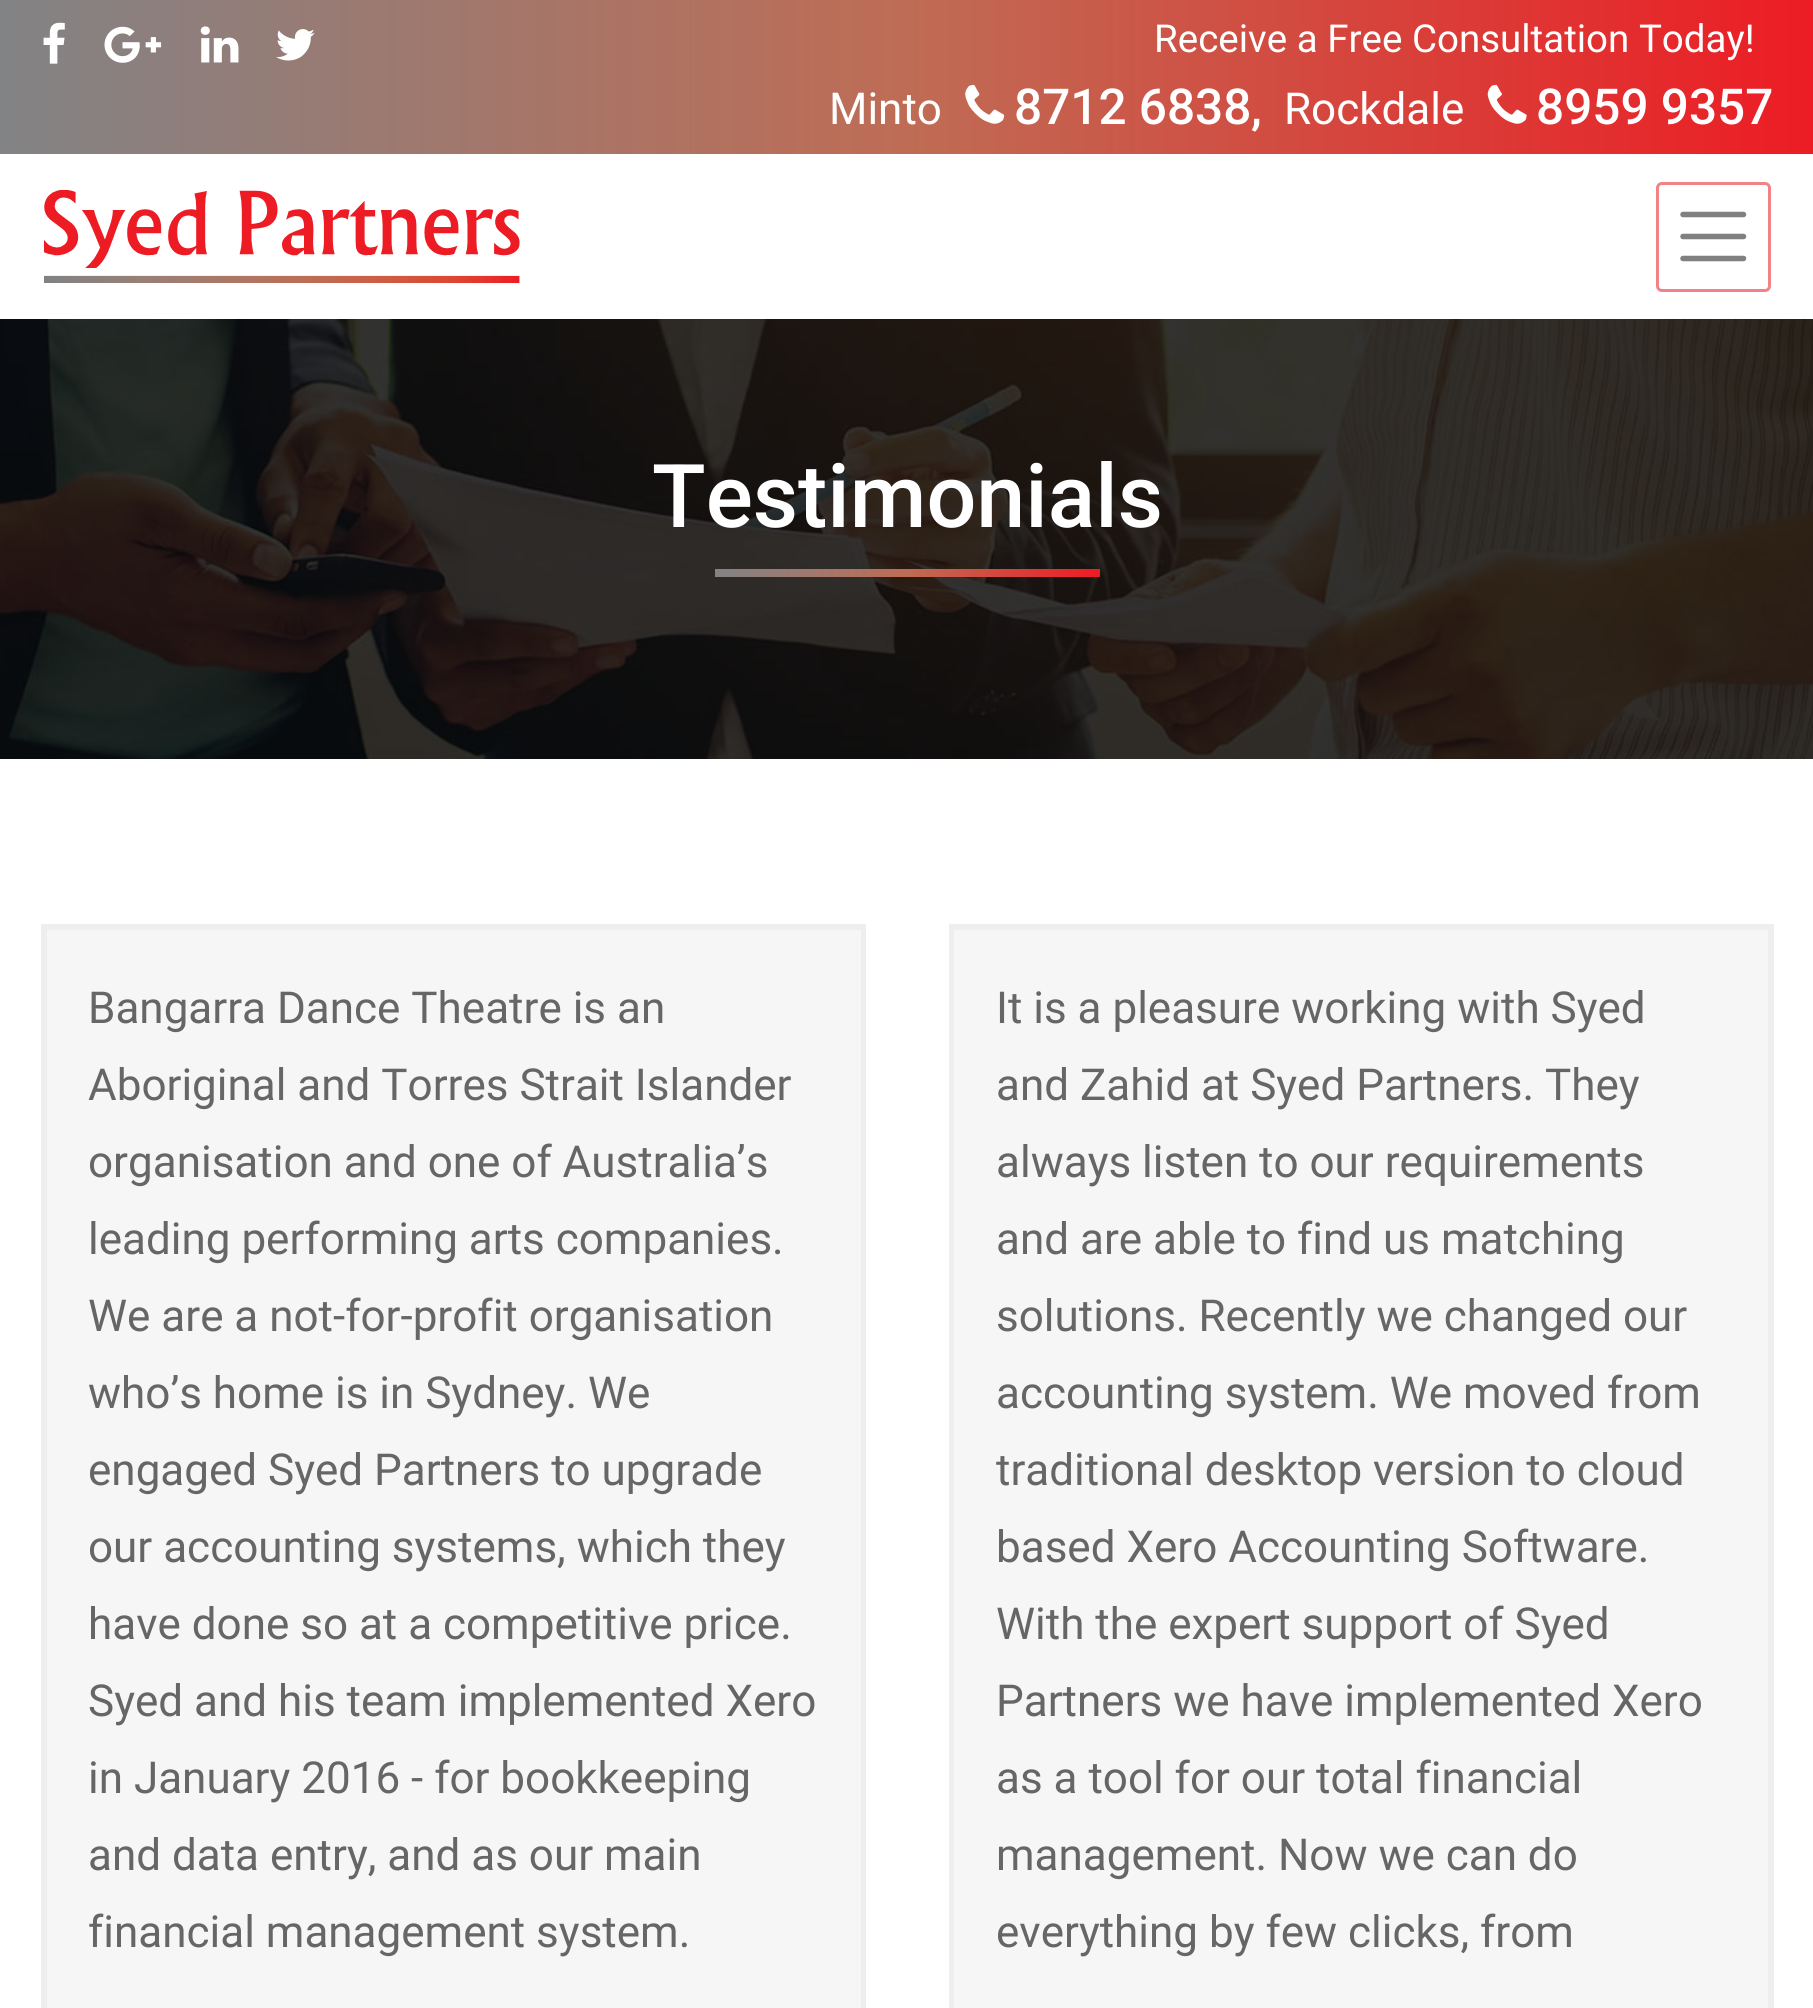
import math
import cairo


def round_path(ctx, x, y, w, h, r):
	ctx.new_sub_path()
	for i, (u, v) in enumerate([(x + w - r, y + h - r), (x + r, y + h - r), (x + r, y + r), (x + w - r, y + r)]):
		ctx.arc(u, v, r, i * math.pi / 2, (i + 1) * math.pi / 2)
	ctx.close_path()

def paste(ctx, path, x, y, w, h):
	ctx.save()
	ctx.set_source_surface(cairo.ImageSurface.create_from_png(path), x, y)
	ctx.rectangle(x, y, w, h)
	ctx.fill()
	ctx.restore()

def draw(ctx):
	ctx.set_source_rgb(1, 1, 1)
	ctx.paint()
	gradient = cairo.LinearGradient(0, 77, 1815, 77)
	gradient.add_color_stop_rgba(0, 0.51, 0.514, 0.522, 1)
	gradient.add_color_stop_rgba(0.5, 0.749, 0.424, 0.333, 1)
	gradient.add_color_stop_rgba(1, 0.929, 0.11, 0.141, 1)
	ctx.set_source(gradient)
	ctx.rectangle(0, 0, 1813, 154)
	ctx.fill()
	paste(ctx, 'media/1.png', 43, 22, 22, 42)
	paste(ctx, 'media/2.png', 104, 26, 58, 37)
	paste(ctx, 'media/3.png', 200, 26, 39, 37)
	paste(ctx, 'media/4.png', 276, 29, 39, 32)
	ctx.select_font_face('Roboto')
	ctx.set_font_size(38.5)
	ctx.set_source_rgb(1, 1, 1)
	ctx.move_to(1154, 52)
	ctx.show_text('Receive a Free Consultation Today!')
	ctx.set_font_size(44)
	ctx.move_to(829, 124)
	ctx.show_text('Minto')
	paste(ctx, 'media/5.png', 965, 84, 40, 40)
	ctx.select_font_face('Roboto Medium')
	ctx.set_font_size(49.5)
	ctx.move_to(1014, 124)
	ctx.show_text('8712 6838')
	ctx.select_font_face('Roboto', cairo.FONT_SLANT_NORMAL, cairo.FONT_WEIGHT_BOLD)
	ctx.set_font_size(44)
	ctx.move_to(1251, 124)
	ctx.show_text(',')
	ctx.select_font_face('Roboto')
	ctx.move_to(1284, 124)
	ctx.show_text('Rockdale')
	paste(ctx, 'media/6.png', 1487, 84, 40, 40)
	ctx.select_font_face('Roboto Medium')
	ctx.set_font_size(49.5)
	ctx.move_to(1536, 124)
	ctx.show_text('8959 9357')
	paste(ctx, 'media/7.png', 44, 190, 476, 93)
	round_path(ctx, 1657.5, 183.5, 112, 107, 4.5)
	ctx.set_source_rgb(0.945, 0.514, 0.533)
	ctx.set_line_width(3)
	ctx.stroke()
	ctx.new_path()
	ctx.move_to(1683, 214.5)
	ctx.line_to(1743.5, 214.5)
	ctx.move_to(1683, 236.5)
	ctx.line_to(1743.5, 236.5)
	ctx.move_to(1683, 258.5)
	ctx.line_to(1743.5, 258.5)
	ctx.set_source_rgb(0.502, 0.502, 0.502)
	ctx.set_line_width(5.5)
	ctx.set_line_cap(cairo.LINE_CAP_ROUND)
	ctx.stroke()
	paste(ctx, 'media/8.png', 0, 319, 1813, 440)
	ctx.set_font_size(88)
	ctx.set_source_rgb(1, 1, 1)
	ctx.move_to(652, 527)
	ctx.show_text('Testimonials')
	gradient = cairo.LinearGradient(715, 573, 1100, 573)
	gradient.add_color_stop_rgba(0, 0.51, 0.514, 0.522, 1)
	gradient.add_color_stop_rgba(0.5, 0.749, 0.424, 0.333, 1)
	gradient.add_color_stop_rgba(1, 0.929, 0.11, 0.141, 1)
	ctx.set_source(gradient)
	ctx.rectangle(715, 569, 385, 8)
	ctx.fill()
	ctx.rectangle(44, 927, 819, 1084)
	ctx.set_source_rgb(0.933, 0.933, 0.933)
	ctx.set_line_width(6)
	ctx.set_line_cap(cairo.LINE_CAP_BUTT)
	ctx.stroke()
	ctx.set_source_rgb(0.961, 0.961, 0.961)
	ctx.rectangle(47, 930, 814, 1078)
	ctx.fill()
	ctx.select_font_face('Roboto')
	ctx.set_font_size(44)
	ctx.set_source_rgb(0.4, 0.4, 0.4)
	for x, y, s in [
		(88, 1023, 'Bangarra Dance Theatre is an'),
		(88, 1100, 'Aboriginal and Torres Strait Islander'),
		(88, 1177, 'organisation and one of Australia’s'),
		(88, 1254, 'leading performing arts companies.'),
		(88, 1331, 'We are a not-for-profit organisation'),
		(88, 1408, 'who’s home is in Sydney. We'),
		(88, 1485, 'engaged Syed Partners to upgrade'),
		(88, 1562, 'our accounting systems, which they'),
		(88, 1639, 'have done so at a competitive price.'),
		(88, 1716, 'Syed and his team implemented Xero'),
		(88, 1793, 'in January 2016 - for bookkeeping'),
		(88, 1870, 'and data entry, and as our main'),
		(88, 1947, 'financial management system.'),
	]:
		ctx.move_to(x, y)
		ctx.show_text(s)
	ctx.rectangle(952, 927, 819, 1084)
	ctx.set_source_rgb(0.933, 0.933, 0.933)
	ctx.stroke()
	ctx.set_source_rgb(0.961, 0.961, 0.961)
	ctx.rectangle(954, 930, 814, 1078)
	ctx.fill()
	ctx.set_source_rgb(0.4, 0.4, 0.4)
	for x, y, s in [
		(996, 1023, 'It is a pleasure working with Syed'),
		(996, 1100, 'and Zahid at Syed Partners. They'),
		(996, 1177, 'always listen to our requirements'),
		(996, 1254, 'and are able to find us matching'),
		(996, 1331, 'solutions. Recently we changed our'),
		(996, 1408, 'accounting system. We moved from'),
		(996, 1485, 'traditional desktop version to cloud'),
		(996, 1562, 'based Xero Accounting Software.'),
		(996, 1639, 'With the expert support of Syed'),
		(996, 1716, 'Partners we have implemented Xero'),
		(996, 1793, 'as a tool for our total financial'),
		(996, 1870, 'management. Now we can do'),
		(996, 1947, 'everything by few clicks, from'),
	]:
		ctx.move_to(x, y)
		ctx.show_text(s)


surface = cairo.ImageSurface(cairo.FORMAT_RGB24, 1813, 2008)
ctx = cairo.Context(surface)
options = cairo.FontOptions()
options.set_hint_metrics(cairo.HINT_METRICS_OFF)
options.set_hint_style(cairo.HINT_STYLE_NONE)
ctx.set_font_options(options)
ctx.set_miter_limit(4)
draw(ctx)
surface.write_to_png('image.png')
